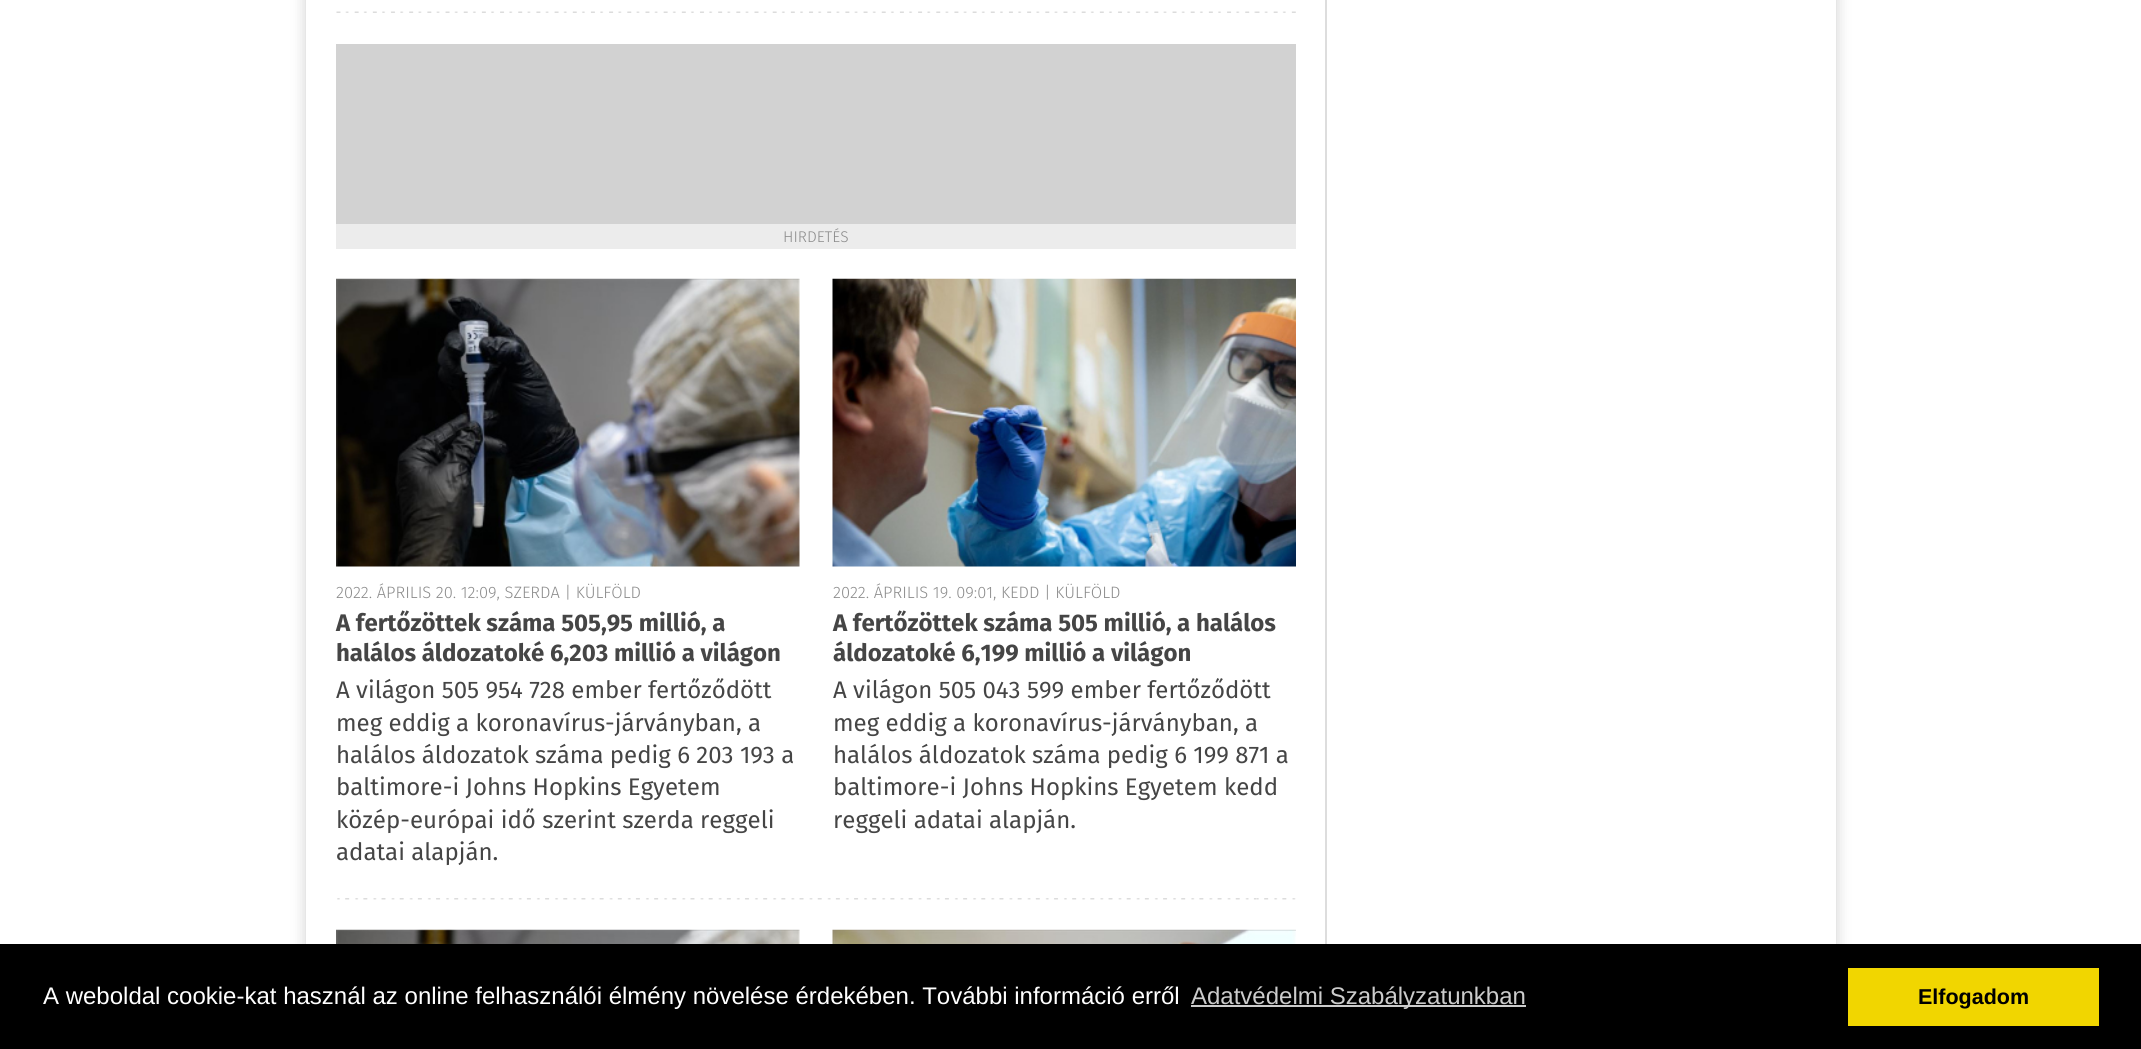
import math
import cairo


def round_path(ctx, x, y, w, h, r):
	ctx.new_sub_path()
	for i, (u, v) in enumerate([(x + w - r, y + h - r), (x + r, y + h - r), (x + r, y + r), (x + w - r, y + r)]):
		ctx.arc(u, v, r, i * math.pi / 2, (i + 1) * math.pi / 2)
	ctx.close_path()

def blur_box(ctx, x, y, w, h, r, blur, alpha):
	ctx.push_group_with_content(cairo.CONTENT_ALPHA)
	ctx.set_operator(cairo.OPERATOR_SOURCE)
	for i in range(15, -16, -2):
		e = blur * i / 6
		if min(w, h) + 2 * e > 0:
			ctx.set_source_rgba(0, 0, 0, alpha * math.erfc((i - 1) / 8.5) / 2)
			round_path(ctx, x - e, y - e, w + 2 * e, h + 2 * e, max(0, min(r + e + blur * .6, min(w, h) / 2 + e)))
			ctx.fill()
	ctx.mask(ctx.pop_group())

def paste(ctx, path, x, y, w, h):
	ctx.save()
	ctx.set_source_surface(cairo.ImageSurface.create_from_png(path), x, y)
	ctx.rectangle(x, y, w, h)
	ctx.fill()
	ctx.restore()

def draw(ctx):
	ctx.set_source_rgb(1, 1, 1)
	ctx.paint()
	ctx.save()
	ctx.set_fill_rule(cairo.FILL_RULE_EVEN_ODD)
	ctx.new_path()
	ctx.move_to(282, 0)
	ctx.line_to(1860, 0)
	ctx.line_to(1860, 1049)
	ctx.line_to(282, 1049)
	ctx.close_path()
	ctx.move_to(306, -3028)
	ctx.line_to(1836, -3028)
	ctx.line_to(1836, 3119)
	ctx.line_to(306, 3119)
	ctx.close_path()
	ctx.clip()
	ctx.set_source_rgb(0, 0, 0)
	blur_box(ctx, 306, -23, 1530, 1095, 0, 7.5, 0.2)
	ctx.restore()
	ctx.set_source_rgb(0.867, 0.867, 0.867)
	ctx.rectangle(1325, 0, 2, 944)
	ctx.fill()
	paste(ctx, 'media/1.png', 336, 11, 960, 2)
	ctx.set_source_rgb(0.824, 0.824, 0.824)
	ctx.rectangle(336, 44, 960, 180)
	ctx.fill()
	ctx.set_source_rgb(0.925, 0.925, 0.925)
	ctx.rectangle(336, 224, 960, 25)
	ctx.fill()
	ctx.select_font_face('Fira Sans Light')
	ctx.set_font_size(15.5)
	ctx.set_source_rgb(0.545, 0.545, 0.545)
	ctx.move_to(783, 242)
	ctx.show_text('HIRDETÉS')
	paste(ctx, 'media/2.png', 337, 898, 959, 2)
	paste(ctx, 'media/3.png', 336, 278, 464, 289)
	ctx.set_font_size(16.5)
	ctx.move_to(336, 598)
	ctx.show_text('2022. ÁPRILIS 20. 12:09, SZERDA | KÜLFÖLD')
	ctx.select_font_face('Fira Sans', cairo.FONT_SLANT_NORMAL, cairo.FONT_WEIGHT_BOLD)
	ctx.set_font_size(24)
	ctx.set_source_rgb(0.271, 0.271, 0.271)
	ctx.move_to(336, 631)
	ctx.show_text('A fertőzöttek száma 505,95 millió, a')
	ctx.move_to(336, 661)
	ctx.show_text('halálos áldozatoké 6,203 millió a világon')
	ctx.select_font_face('Fira Sans')
	for x, y, s in [
		(336, 698, 'A világon 505 954 728 ember fertőződött'),
		(336, 731, 'meg eddig a koronavírus-járványban, a'),
		(336, 763, 'halálos áldozatok száma pedig 6 203 193 a'),
		(336, 795, 'baltimore-i Johns Hopkins Egyetem'),
		(336, 828, 'közép-európai idő szerint szerda reggeli'),
		(336, 860, 'adatai alapján.'),
	]:
		ctx.move_to(x, y)
		ctx.show_text(s)
	paste(ctx, 'media/4.png', 832, 278, 464, 289)
	ctx.select_font_face('Fira Sans Light')
	ctx.set_font_size(16.5)
	ctx.set_source_rgb(0.545, 0.545, 0.545)
	ctx.move_to(833, 598)
	ctx.show_text('2022. ÁPRILIS 19. 09:01, KEDD | KÜLFÖLD')
	ctx.select_font_face('Fira Sans', cairo.FONT_SLANT_NORMAL, cairo.FONT_WEIGHT_BOLD)
	ctx.set_font_size(24)
	ctx.set_source_rgb(0.271, 0.271, 0.271)
	ctx.move_to(833, 631)
	ctx.show_text('A fertőzöttek száma 505 millió, a halálos')
	ctx.move_to(833, 661)
	ctx.show_text('áldozatoké 6,199 millió a világon')
	ctx.select_font_face('Fira Sans')
	for x, y, s in [
		(833, 698, 'A világon 505 043 599 ember fertőződött'),
		(833, 731, 'meg eddig a koronavírus-járványban, a'),
		(833, 763, 'halálos áldozatok száma pedig 6 199 871 a'),
		(833, 795, 'baltimore-i Johns Hopkins Egyetem kedd'),
		(833, 828, 'reggeli adatai alapján.'),
	]:
		ctx.move_to(x, y)
		ctx.show_text(s)
	paste(ctx, 'media/5.png', 336, 929, 464, 15)
	paste(ctx, 'media/6.png', 832, 929, 464, 15)
	ctx.set_source_rgb(0, 0, 0)
	ctx.rectangle(0, 944, 2141, 105)
	ctx.fill()
	ctx.select_font_face('Liberation Sans')
	ctx.set_source_rgb(1, 1, 1)
	ctx.move_to(43, 1004)
	ctx.show_text('A weboldal cookie-kat használ az online felhasználói élmény növelése érdekében. További információ erről')
	ctx.set_source_rgb(0.8, 0.8, 0.8)
	ctx.rectangle(1191, 1005, 335, 2)
	ctx.fill()
	ctx.move_to(1191, 1004)
	ctx.show_text('Adatvédelmi Szabályzatunkban')
	ctx.set_source_rgb(0.945, 0.839, 0)
	ctx.rectangle(1848, 968, 251, 58)
	ctx.fill()
	ctx.select_font_face('Liberation Sans', cairo.FONT_SLANT_NORMAL, cairo.FONT_WEIGHT_BOLD)
	ctx.set_font_size(21.5)
	ctx.set_source_rgb(0, 0, 0)
	ctx.move_to(1918, 1004)
	ctx.show_text('Elfogadom')


surface = cairo.ImageSurface(cairo.FORMAT_RGB24, 2141, 1049)
ctx = cairo.Context(surface)
options = cairo.FontOptions()
options.set_hint_metrics(cairo.HINT_METRICS_OFF)
options.set_hint_style(cairo.HINT_STYLE_NONE)
ctx.set_font_options(options)
ctx.set_miter_limit(4)
draw(ctx)
surface.write_to_png('image.png')
